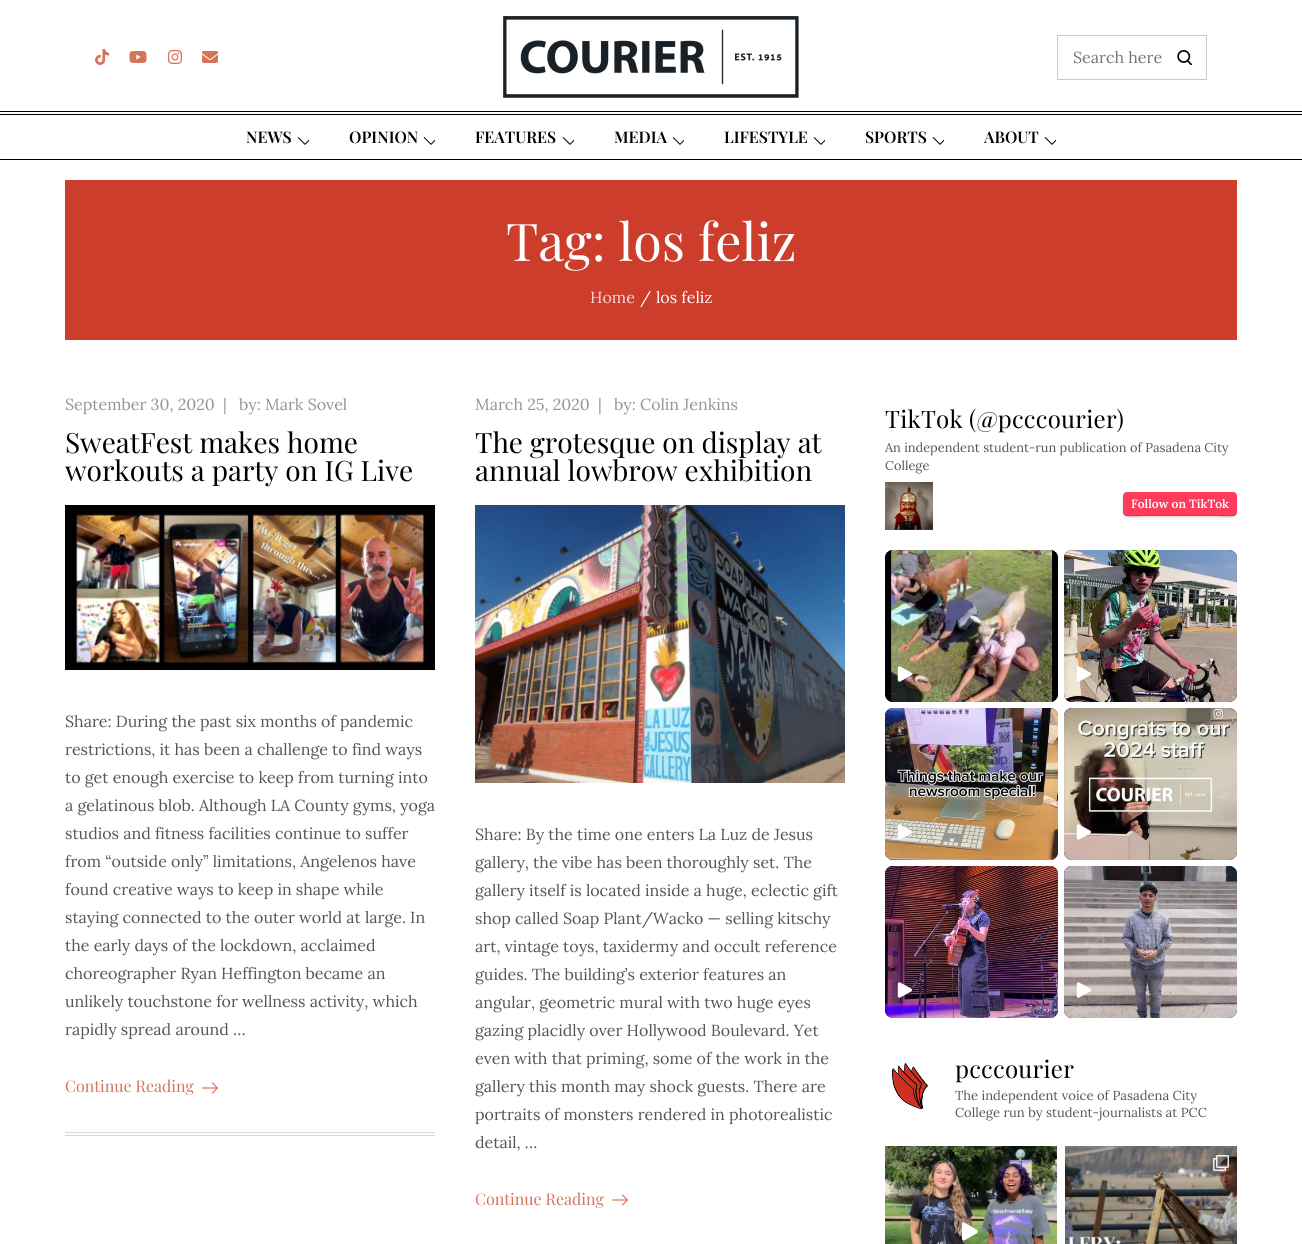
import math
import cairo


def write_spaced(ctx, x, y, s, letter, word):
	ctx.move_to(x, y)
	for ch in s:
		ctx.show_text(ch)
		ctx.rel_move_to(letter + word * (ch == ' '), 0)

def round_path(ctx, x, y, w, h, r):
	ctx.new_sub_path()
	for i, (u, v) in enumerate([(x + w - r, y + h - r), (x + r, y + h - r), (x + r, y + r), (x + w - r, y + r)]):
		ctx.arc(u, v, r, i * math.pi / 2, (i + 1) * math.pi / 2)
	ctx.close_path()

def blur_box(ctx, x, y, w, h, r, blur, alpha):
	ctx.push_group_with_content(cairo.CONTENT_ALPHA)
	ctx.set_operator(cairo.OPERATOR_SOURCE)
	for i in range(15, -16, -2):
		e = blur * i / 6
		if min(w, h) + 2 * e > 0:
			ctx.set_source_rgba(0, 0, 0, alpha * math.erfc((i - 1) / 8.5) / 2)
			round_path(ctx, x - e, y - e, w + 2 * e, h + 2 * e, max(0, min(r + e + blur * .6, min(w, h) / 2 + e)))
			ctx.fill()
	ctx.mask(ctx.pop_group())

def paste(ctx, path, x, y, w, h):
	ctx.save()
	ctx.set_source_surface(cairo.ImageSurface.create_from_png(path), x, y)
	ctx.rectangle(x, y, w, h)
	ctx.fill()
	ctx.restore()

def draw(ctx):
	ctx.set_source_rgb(1, 1, 1)
	ctx.paint()
	paste(ctx, 'media/1.png', 95, 49, 14, 16)
	paste(ctx, 'media/2.png', 129, 51, 18, 12)
	paste(ctx, 'media/3.png', 168, 50, 14, 14)
	paste(ctx, 'media/4.png', 202, 51, 16, 12)
	paste(ctx, 'media/5.png', 503, 16, 296, 82)
	ctx.rectangle(1057.5, 35.5, 149, 44)
	ctx.set_source_rgb(0.8, 0.8, 0.8)
	ctx.set_line_width(1)
	ctx.stroke()
	ctx.select_font_face('Lora')
	ctx.set_font_size(16)
	ctx.set_source_rgb(0.459, 0.459, 0.459)
	ctx.move_to(1073, 63)
	ctx.show_text('Search here')
	paste(ctx, 'media/6.png', 1177, 50, 15, 15)
	ctx.set_source_rgb(0, 0, 0)
	ctx.rectangle(0, 114, 1302, 1)
	ctx.rectangle(0, 159, 1302, 1)
	ctx.rectangle(0, 111, 1302, 1)
	ctx.fill()
	ctx.select_font_face('Playfair Display SemiBold')
	ctx.move_to(246, 143)
	ctx.show_text('NEWS')
	paste(ctx, 'media/7.png', 297, 137, 12, 8)
	ctx.move_to(349, 143)
	ctx.show_text('OPINION')
	paste(ctx, 'media/7.png', 423, 137, 12, 8)
	ctx.move_to(475, 143)
	ctx.show_text('FEATURES')
	paste(ctx, 'media/7.png', 562, 137, 12, 8)
	ctx.move_to(614, 143)
	ctx.show_text('MEDIA')
	paste(ctx, 'media/7.png', 672, 137, 12, 8)
	ctx.move_to(724, 143)
	ctx.show_text('LIFESTYLE')
	paste(ctx, 'media/7.png', 813, 137, 12, 8)
	ctx.move_to(865, 143)
	ctx.show_text('SPORTS')
	paste(ctx, 'media/7.png', 932, 137, 12, 8)
	ctx.move_to(984, 143)
	ctx.show_text('ABOUT')
	paste(ctx, 'media/7.png', 1044, 137, 12, 8)
	ctx.set_source_rgb(0.8, 0.239, 0.173)
	ctx.rectangle(65, 180, 1172, 160)
	ctx.fill()
	ctx.select_font_face('Playfair Display')
	ctx.set_font_size(52)
	ctx.set_source_rgb(1, 1, 1)
	ctx.move_to(506, 261)
	ctx.show_text('Tag: los feliz')
	ctx.select_font_face('Lora')
	ctx.set_font_size(16)
	ctx.set_source_rgb(0.961, 0.847, 0.835)
	ctx.move_to(590, 303)
	ctx.show_text('Home')
	ctx.set_source_rgb(1, 1, 1)
	ctx.move_to(640, 303)
	ctx.show_text('/')
	ctx.move_to(656, 303)
	ctx.show_text('los feliz')
	ctx.set_source_rgb(0.847, 0.847, 0.847)
	ctx.rectangle(65, 1135, 370, 1)
	ctx.fill()
	ctx.set_source_rgb(0.58, 0.58, 0.58)
	for x, y, s in [
		(65, 410, 'September 30, 2020'),
		(223, 410, '|'),
		(239, 410, 'by: Mark Sovel'),
	]:
		ctx.move_to(x, y)
		ctx.show_text(s)
	ctx.select_font_face('Playfair Display')
	ctx.set_font_size(28)
	ctx.set_source_rgb(0, 0, 0)
	ctx.move_to(65, 453)
	ctx.show_text('SweatFest makes home')
	ctx.move_to(65, 481)
	ctx.show_text('workouts a party on IG Live')
	paste(ctx, 'media/8.png', 65, 505, 370, 165)
	ctx.select_font_face('Lora')
	ctx.set_font_size(16)
	ctx.set_source_rgb(0.337, 0.337, 0.337)
	for x, y, s in [
		(65, 727, 'Share: During the past six months of pandemic'),
		(65, 755, 'restrictions, it has been a challenge to find ways'),
		(65, 783, 'to get enough exercise to keep from turning into'),
		(65, 811, 'a gelatinous blob. Although LA County gyms, yoga'),
		(65, 839, 'studios and fitness facilities continue to suffer'),
		(65, 867, 'from “outside only” limitations, Angelenos have'),
		(65, 895, 'found creative ways to keep in shape while'),
		(65, 923, 'staying connected to the outer world at large. In'),
		(65, 951, 'the early days of the lockdown, acclaimed'),
		(65, 979, 'choreographer Ryan Heffington became an'),
		(65, 1007, 'unlikely touchstone for wellness activity, which'),
		(65, 1035, 'rapidly spread around …'),
	]:
		ctx.move_to(x, y)
		ctx.show_text(s)
	ctx.select_font_face('Playfair Display')
	ctx.set_source_rgb(0.839, 0.455, 0.349)
	ctx.move_to(65, 1092)
	ctx.show_text('Continue Reading')
	paste(ctx, 'media/9.png', 202, 1082, 16, 12)
	ctx.set_source_rgb(0.847, 0.847, 0.847)
	ctx.rectangle(65, 1132, 370, 1)
	ctx.fill()
	ctx.select_font_face('Lora')
	ctx.set_source_rgb(0.58, 0.58, 0.58)
	for x, y, s in [
		(475, 410, 'March 25, 2020'),
		(598, 410, '|'),
		(614, 410, 'by: Colin Jenkins'),
	]:
		ctx.move_to(x, y)
		ctx.show_text(s)
	ctx.select_font_face('Playfair Display')
	ctx.set_font_size(28)
	ctx.set_source_rgb(0, 0, 0)
	ctx.move_to(475, 453)
	ctx.show_text('The grotesque on display at')
	ctx.move_to(475, 481)
	ctx.show_text('annual lowbrow exhibition')
	paste(ctx, 'media/10.png', 475, 505, 370, 278)
	ctx.select_font_face('Lora')
	ctx.set_font_size(16)
	ctx.set_source_rgb(0.337, 0.337, 0.337)
	for x, y, s in [
		(475, 840, 'Share: By the time one enters La Luz de Jesus'),
		(475, 868, 'gallery, the vibe has been thoroughly set. The'),
		(475, 896, 'gallery itself is located inside a huge, eclectic gift'),
		(475, 924, 'shop called Soap Plant/Wacko — selling kitschy'),
		(475, 952, 'art, vintage toys, taxidermy and occult reference'),
		(475, 980, 'guides. The building’s exterior features an'),
		(475, 1008, 'angular, geometric mural with two huge eyes'),
		(475, 1036, 'gazing placidly over Hollywood Boulevard. Yet'),
		(475, 1064, 'even with that priming, some of the work in the'),
		(475, 1092, 'gallery this month may shock guests. There are'),
		(475, 1120, 'portraits of monsters rendered in photorealistic'),
		(475, 1148, 'detail, …'),
	]:
		ctx.move_to(x, y)
		ctx.show_text(s)
	ctx.select_font_face('Playfair Display')
	ctx.set_source_rgb(0.839, 0.455, 0.349)
	ctx.move_to(475, 1205)
	ctx.show_text('Continue Reading')
	paste(ctx, 'media/9.png', 612, 1194, 16, 12)
	ctx.set_font_size(24)
	ctx.set_source_rgb(0, 0, 0)
	write_spaced(ctx, 885, 428, 'TikTok (@pcccourier)', 0.25, 0)
	ctx.select_font_face('Lora')
	ctx.set_font_size(12.8)
	ctx.set_source_rgb(0.337, 0.337, 0.337)
	ctx.move_to(885, 452)
	ctx.show_text('An independent student-run publication of Pasadena City')
	ctx.move_to(885, 470)
	ctx.show_text('College')
	paste(ctx, 'media/11.png', 885, 482, 48, 48)
	ctx.set_source_rgb(0, 0, 0)
	blur_box(ctx, 1123, 493, 114, 24, 4, 0.5, 0.08)
	ctx.save()
	ctx.rectangle(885, 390, 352, 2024)
	ctx.clip()
	ctx.set_source_rgb(0.235, 0.259, 0.341)
	blur_box(ctx, 1123, 494, 114, 24, 4, 2.5, 0.12)
	ctx.restore()
	ctx.set_source_rgb(1, 0.231, 0.361)
	round_path(ctx, 1123, 492, 114, 24, 4)
	ctx.fill()
	ctx.set_source_rgba(0, 0, 0, 0.12)
	ctx.new_path()
	ctx.move_to(1123, 511)
	ctx.curve_to(1123, 521, 1141, 516, 1145, 516)
	ctx.line_to(1215, 516)
	ctx.curve_to(1219, 516, 1237, 521, 1237, 511)
	ctx.curve_to(1237, 513, 1235, 515, 1233, 515)
	ctx.line_to(1127, 515)
	ctx.curve_to(1125, 515, 1123, 513, 1123, 511)
	ctx.close_path()
	ctx.fill()
	ctx.select_font_face('Lora SemiBold')
	ctx.set_font_size(12)
	ctx.set_source_rgb(1, 1, 1)
	ctx.move_to(1131, 508)
	ctx.show_text('Follow on TikTok')
	ctx.set_source_rgb(0, 0, 0)
	round_path(ctx, 885, 550, 173, 152, 8)
	ctx.fill()
	paste(ctx, 'media/12.png', 885, 550, 173, 152)
	paste(ctx, 'media/13.png', 897, 666, 15, 16)
	round_path(ctx, 1064, 550, 173, 152, 8)
	ctx.fill()
	paste(ctx, 'media/14.png', 1064, 550, 173, 152)
	paste(ctx, 'media/15.png', 1076, 666, 15, 16)
	round_path(ctx, 885, 708, 173, 152, 8)
	ctx.fill()
	paste(ctx, 'media/16.png', 885, 708, 173, 152)
	paste(ctx, 'media/17.png', 897, 824, 15, 16)
	round_path(ctx, 1064, 708, 173, 152, 8)
	ctx.fill()
	paste(ctx, 'media/18.png', 1064, 708, 173, 152)
	paste(ctx, 'media/19.png', 1076, 824, 15, 16)
	round_path(ctx, 885, 866, 173, 152, 8)
	ctx.fill()
	paste(ctx, 'media/20.png', 885, 866, 173, 152)
	paste(ctx, 'media/21.png', 897, 982, 15, 16)
	round_path(ctx, 1064, 866, 173, 152, 8)
	ctx.fill()
	paste(ctx, 'media/22.png', 1064, 866, 173, 152)
	paste(ctx, 'media/23.png', 1076, 982, 15, 16)
	paste(ctx, 'media/24.png', 891, 1063, 38, 47)
	ctx.select_font_face('Playfair Display')
	ctx.set_font_size(24)
	write_spaced(ctx, 955, 1078, 'pcccourier', 0.25, 0)
	ctx.select_font_face('Lora')
	ctx.set_font_size(13)
	ctx.set_source_rgb(0.337, 0.337, 0.337)
	ctx.move_to(955, 1100)
	ctx.show_text('The independent voice of Pasadena City')
	ctx.move_to(955, 1117)
	ctx.show_text('College run by student-journalists at PCC')
	paste(ctx, 'media/25.png', 885, 1146, 172, 98)
	paste(ctx, 'media/26.png', 962, 1222, 16, 19)
	paste(ctx, 'media/27.png', 1065, 1146, 172, 98)
	paste(ctx, 'media/28.png', 1213, 1155, 16, 16)


surface = cairo.ImageSurface(cairo.FORMAT_RGB24, 1302, 1244)
ctx = cairo.Context(surface)
options = cairo.FontOptions()
options.set_hint_metrics(cairo.HINT_METRICS_OFF)
options.set_hint_style(cairo.HINT_STYLE_NONE)
ctx.set_font_options(options)
ctx.set_miter_limit(4)
draw(ctx)
surface.write_to_png('image.png')
